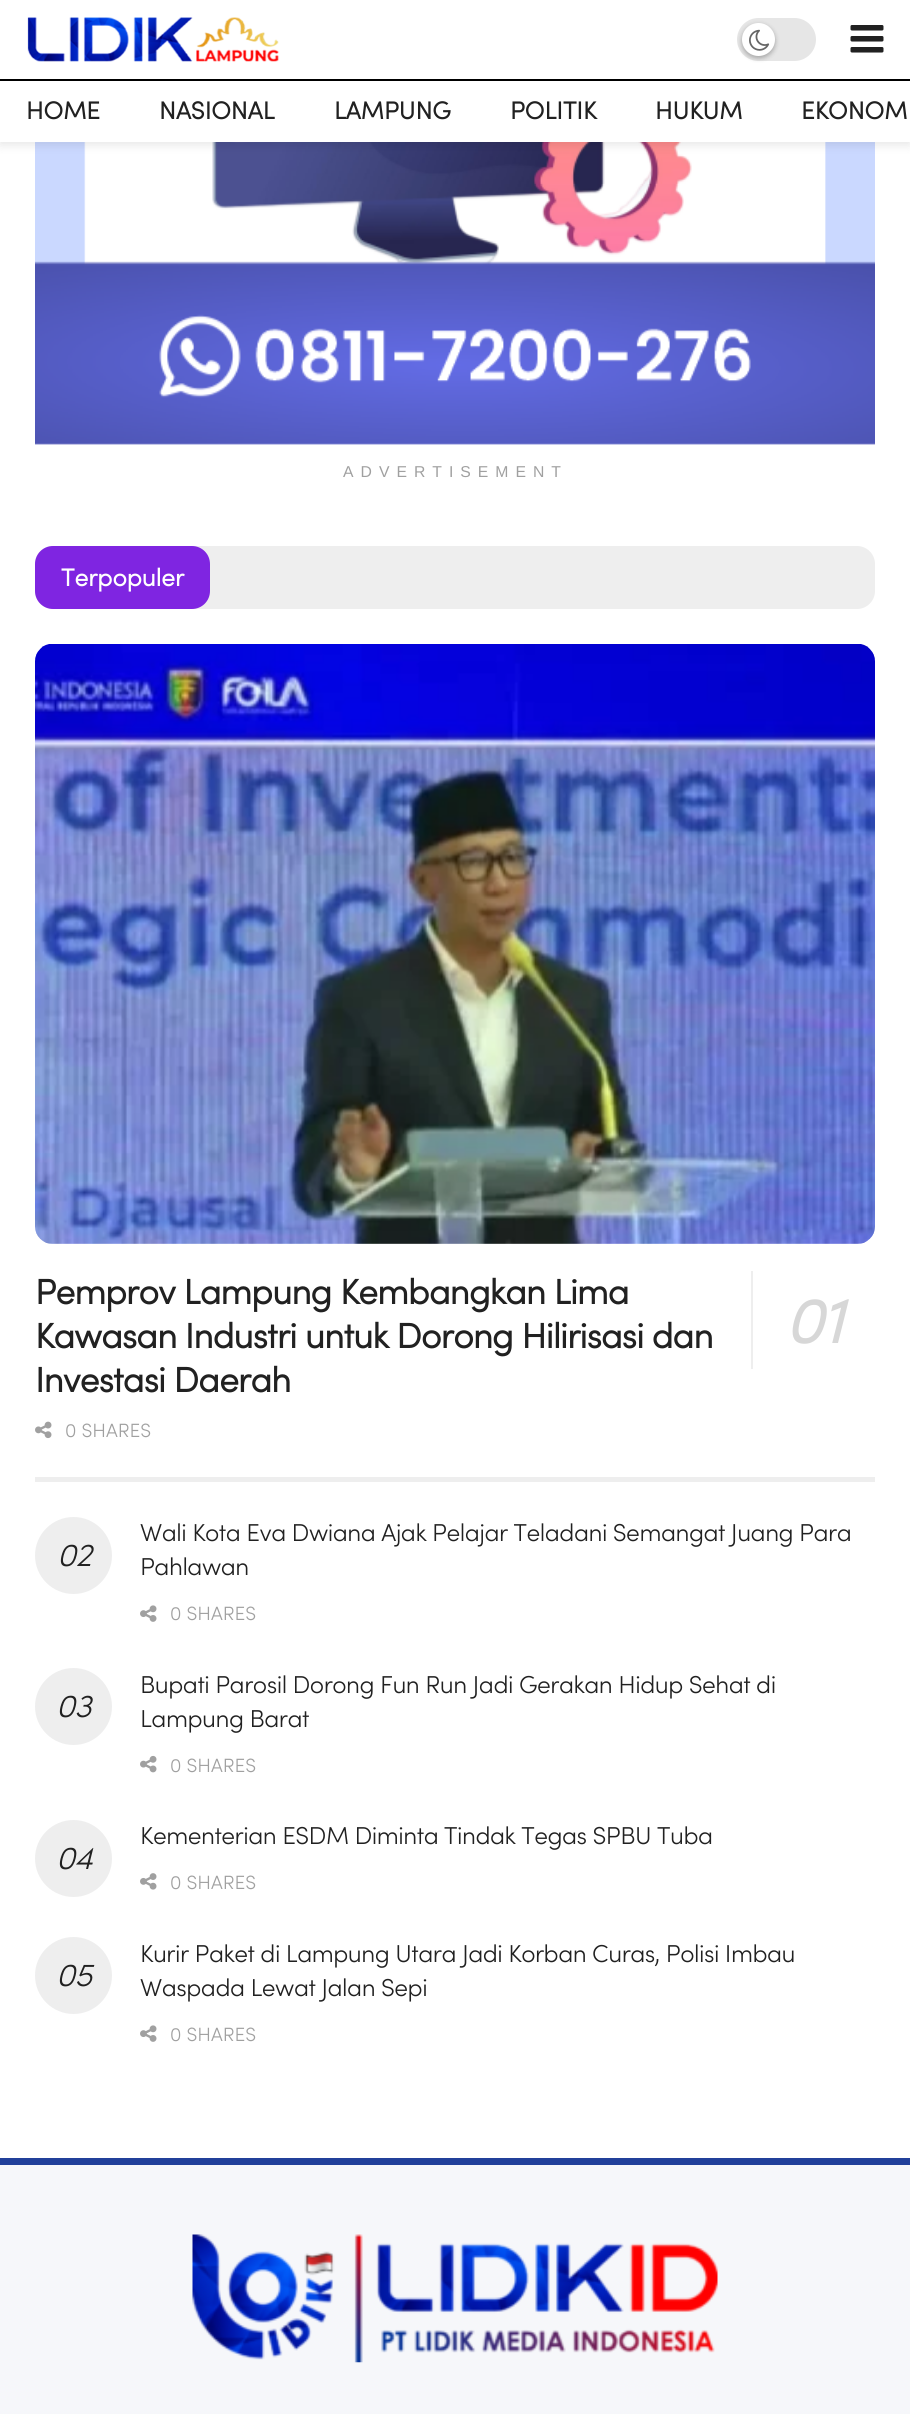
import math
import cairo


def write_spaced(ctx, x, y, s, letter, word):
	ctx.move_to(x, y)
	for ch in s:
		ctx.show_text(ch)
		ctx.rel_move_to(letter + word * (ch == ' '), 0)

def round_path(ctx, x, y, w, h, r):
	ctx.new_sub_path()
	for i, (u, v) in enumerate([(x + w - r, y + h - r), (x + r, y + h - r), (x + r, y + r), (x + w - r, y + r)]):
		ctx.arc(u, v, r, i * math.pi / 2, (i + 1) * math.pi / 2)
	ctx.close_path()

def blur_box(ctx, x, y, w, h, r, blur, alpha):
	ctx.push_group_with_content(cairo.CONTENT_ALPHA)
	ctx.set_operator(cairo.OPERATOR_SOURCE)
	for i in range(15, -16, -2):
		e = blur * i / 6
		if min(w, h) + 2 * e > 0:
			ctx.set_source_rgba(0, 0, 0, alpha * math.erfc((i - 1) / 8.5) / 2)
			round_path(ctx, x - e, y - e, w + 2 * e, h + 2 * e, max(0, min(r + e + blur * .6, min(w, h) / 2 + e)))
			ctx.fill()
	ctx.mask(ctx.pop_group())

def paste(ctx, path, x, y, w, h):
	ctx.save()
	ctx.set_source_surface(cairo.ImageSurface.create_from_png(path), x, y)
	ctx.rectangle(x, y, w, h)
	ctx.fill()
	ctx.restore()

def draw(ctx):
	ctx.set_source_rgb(1, 1, 1)
	ctx.paint()
	paste(ctx, 'media/4.png', 35, 142, 840, 303)
	ctx.set_source_rgb(0, 0, 0)
	blur_box(ctx, 0, 4, 910, 141, 0, 5, 0.1)
	ctx.set_source_rgb(1, 1, 1)
	ctx.rectangle(0, 0, 910, 142)
	ctx.fill()
	paste(ctx, 'media/1.png', 27, 17, 252, 45)
	ctx.set_source_rgb(0.902, 0.902, 0.902)
	round_path(ctx, 737, 18, 79, 43, 21.5)
	ctx.fill()
	ctx.set_source_rgb(0, 0, 0)
	blur_box(ctx, 742, 25, 33, 33, 16.5, 2.5, 0.3)
	ctx.set_source_rgb(1, 1, 1)
	ctx.arc(758.5, 39.5, 16.5, 0, 2 * math.pi)
	ctx.fill()
	paste(ctx, 'media/2.png', 749, 29, 21, 22)
	paste(ctx, 'media/3.png', 850, 25, 34, 28)
	ctx.set_source_rgb(0, 0, 0)
	ctx.rectangle(0, 79, 910, 2)
	ctx.fill()
	ctx.select_font_face('Sofia', cairo.FONT_SLANT_NORMAL, cairo.FONT_WEIGHT_BOLD)
	ctx.set_font_size(24.5)
	ctx.set_source_rgb(0.129, 0.129, 0.129)
	for x, y, s in [
		(26, 119, 'HOME'),
		(159, 119, 'NASIONAL'),
		(334, 119, 'LAMPUNG'),
		(510, 119, 'POLITIK'),
		(655, 119, 'HUKUM'),
		(801, 119, 'EKONOM'),
	]:
		ctx.move_to(x, y)
		ctx.show_text(s)
	ctx.select_font_face('Liberation Sans')
	ctx.set_font_size(15.75)
	ctx.set_source_rgb(0.627, 0.627, 0.627)
	write_spaced(ctx, 343, 477, 'ADVERTISEMENT', 7, 0)
	ctx.set_source_rgb(0.933, 0.933, 0.933)
	round_path(ctx, 35, 546, 840, 63, 18)
	ctx.fill()
	ctx.set_source_rgb(0.498, 0.145, 0.882)
	round_path(ctx, 35, 546, 175, 63, 18)
	ctx.fill()
	ctx.select_font_face('Sofia', cairo.FONT_SLANT_NORMAL, cairo.FONT_WEIGHT_BOLD)
	ctx.set_font_size(24.5)
	ctx.set_source_rgb(1, 1, 1)
	ctx.move_to(61, 586)
	ctx.show_text('Terpopuler')
	ctx.set_source_rgb(0.933, 0.933, 0.933)
	ctx.rectangle(35, 1477, 840, 5)
	ctx.fill()
	paste(ctx, 'media/5.png', 35, 644, 840, 600)
	ctx.set_font_size(35)
	ctx.set_source_rgb(0.129, 0.129, 0.129)
	write_spaced(ctx, 35, 1304, 'Pemprov Lampung Kembangkan Lima', -0.7, 0)
	write_spaced(ctx, 35, 1348, 'Kawasan Industri untuk Dorong Hilirisasi dan', -0.7, 0)
	ctx.set_source_rgb(0.933, 0.933, 0.933)
	ctx.rectangle(751, 1271, 2, 98)
	ctx.fill()
	ctx.select_font_face('Sofia', cairo.FONT_SLANT_ITALIC, cairo.FONT_WEIGHT_BOLD)
	ctx.set_font_size(63)
	ctx.set_source_rgb(0.843, 0.843, 0.843)
	write_spaced(ctx, 785, 1343, '01', -0.7, 0)
	ctx.select_font_face('Sofia', cairo.FONT_SLANT_NORMAL, cairo.FONT_WEIGHT_BOLD)
	ctx.set_font_size(35)
	ctx.set_source_rgb(0.129, 0.129, 0.129)
	write_spaced(ctx, 35, 1392, 'Investasi Daerah', -0.7, 0)
	paste(ctx, 'media/6.png', 35, 1421, 17, 18)
	ctx.select_font_face('Sofia Light')
	ctx.set_font_size(19.25)
	ctx.set_source_rgb(0.627, 0.627, 0.627)
	ctx.move_to(65, 1437)
	ctx.show_text('0 SHARES')
	ctx.set_font_size(24.5)
	ctx.set_source_rgb(0.129, 0.129, 0.129)
	write_spaced(ctx, 140, 1541, 'Wali Kota Eva Dwiana Ajak Pelajar Teladani Semangat Juang Para', -0.5, 0)
	ctx.set_source_rgb(0.933, 0.933, 0.933)
	ctx.new_path()
	ctx.arc(73.5, 1555.5, 38.5, 0, 2 * math.pi)
	ctx.fill()
	ctx.select_font_face('Sofia Light', cairo.FONT_SLANT_ITALIC)
	ctx.set_font_size(32)
	ctx.set_source_rgb(0.129, 0.129, 0.129)
	write_spaced(ctx, 57, 1566, '02', -0.5, 0)
	ctx.select_font_face('Sofia Light')
	ctx.set_font_size(24.5)
	write_spaced(ctx, 140, 1575, 'Pahlawan', -0.5, 0)
	paste(ctx, 'media/7.png', 140, 1605, 17, 17)
	ctx.set_font_size(19.25)
	ctx.set_source_rgb(0.627, 0.627, 0.627)
	ctx.move_to(170, 1620)
	ctx.show_text('0 SHARES')
	ctx.set_font_size(24.5)
	ctx.set_source_rgb(0.129, 0.129, 0.129)
	write_spaced(ctx, 140, 1693, 'Bupati Parosil Dorong Fun Run Jadi Gerakan Hidup Sehat di', -0.5, 0)
	ctx.set_source_rgb(0.933, 0.933, 0.933)
	ctx.new_path()
	ctx.arc(73.5, 1706.5, 38.5, 0, 2 * math.pi)
	ctx.fill()
	ctx.select_font_face('Sofia Light', cairo.FONT_SLANT_ITALIC)
	ctx.set_font_size(32)
	ctx.set_source_rgb(0.129, 0.129, 0.129)
	write_spaced(ctx, 56, 1717, '03', -0.5, 0)
	ctx.select_font_face('Sofia Light')
	ctx.set_font_size(24.5)
	write_spaced(ctx, 140, 1727, 'Lampung Barat', -0.5, 0)
	paste(ctx, 'media/8.png', 140, 1755, 17, 18)
	ctx.set_font_size(19.25)
	ctx.set_source_rgb(0.627, 0.627, 0.627)
	ctx.move_to(170, 1772)
	ctx.show_text('0 SHARES')
	ctx.set_font_size(24.5)
	ctx.set_source_rgb(0.129, 0.129, 0.129)
	write_spaced(ctx, 140, 1844, 'Kementerian ESDM Diminta Tindak Tegas SPBU Tuba', -0.5, 0)
	ctx.set_source_rgb(0.933, 0.933, 0.933)
	ctx.new_path()
	ctx.arc(73.5, 1858.5, 38.5, 0, 2 * math.pi)
	ctx.fill()
	ctx.select_font_face('Sofia Light', cairo.FONT_SLANT_ITALIC)
	ctx.set_font_size(32)
	ctx.set_source_rgb(0.129, 0.129, 0.129)
	write_spaced(ctx, 56, 1869, '04', -0.5, 0)
	paste(ctx, 'media/9.png', 140, 1873, 17, 17)
	ctx.select_font_face('Sofia Light')
	ctx.set_font_size(19.25)
	ctx.set_source_rgb(0.627, 0.627, 0.627)
	ctx.move_to(170, 1889)
	ctx.show_text('0 SHARES')
	ctx.set_font_size(24.5)
	ctx.set_source_rgb(0.129, 0.129, 0.129)
	write_spaced(ctx, 140, 1962, 'Kurir Paket di Lampung Utara Jadi Korban Curas, Polisi Imbau', -0.5, 0)
	ctx.set_source_rgb(0.933, 0.933, 0.933)
	ctx.new_path()
	ctx.arc(73.5, 1975.5, 38.5, 0, 2 * math.pi)
	ctx.fill()
	ctx.select_font_face('Sofia Light', cairo.FONT_SLANT_ITALIC)
	ctx.set_font_size(32)
	ctx.set_source_rgb(0.129, 0.129, 0.129)
	write_spaced(ctx, 56, 1986, '05', -0.5, 0)
	ctx.select_font_face('Sofia Light')
	ctx.set_font_size(24.5)
	write_spaced(ctx, 140, 1996, 'Waspada Lewat Jalan Sepi', -0.5, 0)
	paste(ctx, 'media/10.png', 140, 2025, 17, 17)
	ctx.set_font_size(19.25)
	ctx.set_source_rgb(0.627, 0.627, 0.627)
	ctx.move_to(170, 2041)
	ctx.show_text('0 SHARES')
	ctx.set_source_rgb(0.961, 0.965, 0.98)
	ctx.rectangle(0, 2165, 910, 249)
	ctx.fill()
	ctx.set_source_rgb(0.129, 0.251, 0.604)
	ctx.rectangle(0, 2158, 910, 7)
	ctx.fill()
	paste(ctx, 'media/11.png', 192, 2234, 526, 129)


surface = cairo.ImageSurface(cairo.FORMAT_RGB24, 910, 2414)
ctx = cairo.Context(surface)
options = cairo.FontOptions()
options.set_hint_metrics(cairo.HINT_METRICS_OFF)
options.set_hint_style(cairo.HINT_STYLE_NONE)
ctx.set_font_options(options)
ctx.set_miter_limit(4)
draw(ctx)
surface.write_to_png('image.png')
